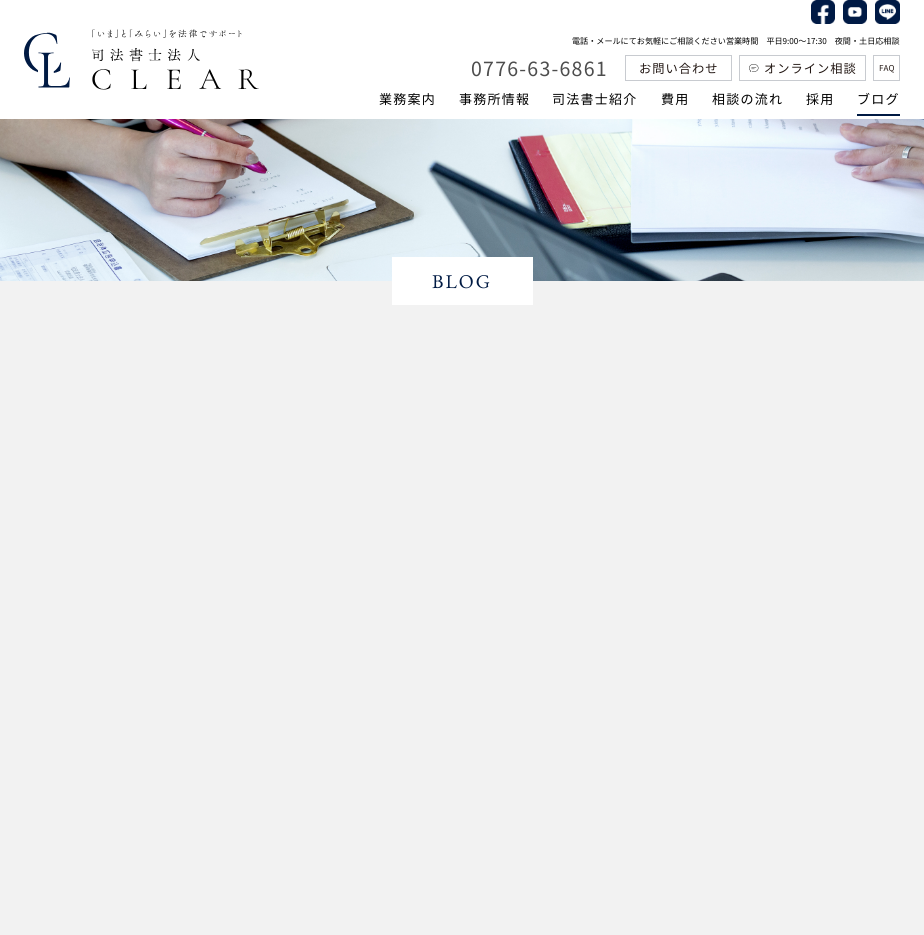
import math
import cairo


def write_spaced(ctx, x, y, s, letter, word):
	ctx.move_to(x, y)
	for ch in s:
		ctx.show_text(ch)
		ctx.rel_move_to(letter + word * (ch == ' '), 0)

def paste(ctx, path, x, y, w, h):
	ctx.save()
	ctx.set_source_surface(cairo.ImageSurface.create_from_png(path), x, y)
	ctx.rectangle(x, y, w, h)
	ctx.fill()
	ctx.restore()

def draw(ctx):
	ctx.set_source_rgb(0.949, 0.949, 0.949)
	ctx.paint()
	ctx.set_source_rgb(1, 1, 1)
	ctx.rectangle(0, 0, 924, 119)
	ctx.fill()
	paste(ctx, 'media/1.png', 24, 29, 235, 61)
	paste(ctx, 'media/2.png', 811, 0, 24, 24)
	paste(ctx, 'media/3.png', 843, 0, 24, 24)
	paste(ctx, 'media/4.png', 875, 0, 25, 24)
	ctx.select_font_face('Noto Sans JP')
	ctx.set_font_size(8.1)
	ctx.set_source_rgb(0, 0, 0)
	ctx.move_to(572, 44)
	ctx.show_text('電話・メールにてお気軽にご相談ください営業時間　平日9:00～17:30　夜間・土日応相談')
	ctx.set_font_size(19.5)
	ctx.set_source_rgb(0.302, 0.302, 0.302)
	write_spaced(ctx, 471, 76, '0776-63-6861', 1.25, 0)
	ctx.rectangle(625.5, 55.5, 106, 25)
	ctx.set_source_rgb(0.784, 0.796, 0.816)
	ctx.set_line_width(1)
	ctx.stroke()
	ctx.set_font_size(12.25)
	ctx.set_source_rgb(0.137, 0.094, 0.082)
	write_spaced(ctx, 639, 73, 'お問い合わせ', 1, 0)
	ctx.rectangle(739.5, 55.5, 126, 25)
	ctx.set_source_rgb(0.784, 0.796, 0.816)
	ctx.stroke()
	paste(ctx, 'media/5.png', 749, 64, 10, 8)
	ctx.set_source_rgb(0.137, 0.094, 0.082)
	write_spaced(ctx, 764, 73, 'オンライン相談', 1, 0)
	ctx.rectangle(873.5, 55.5, 26, 25)
	ctx.set_source_rgb(0.784, 0.796, 0.816)
	ctx.stroke()
	ctx.set_font_size(8.1)
	ctx.set_source_rgb(0.137, 0.094, 0.082)
	ctx.move_to(879, 71)
	ctx.show_text('FAQ')
	ctx.set_font_size(13)
	ctx.set_source_rgb(0, 0, 0)
	for x, y, s in [
		(379, 104, '業務案内'),
		(459, 104, '事務所情報'),
		(552, 104, '司法書士紹介'),
		(661, 104, '費用'),
		(712, 104, '相談の流れ'),
		(806, 104, '採用'),
		(857, 104, 'ブログ'),
	]:
		write_spaced(ctx, x, y, s, 1.25, 0)
	ctx.set_source_rgb(0, 0.102, 0.263)
	ctx.rectangle(857, 114, 43, 2)
	ctx.fill()
	paste(ctx, 'media/6.png', 0, 119, 924, 162)
	ctx.set_source_rgb(1, 1, 1)
	ctx.rectangle(392, 257, 141, 48)
	ctx.fill()
	ctx.select_font_face('EB Garamond')
	ctx.set_font_size(19.5)
	ctx.set_source_rgb(0, 0.102, 0.263)
	write_spaced(ctx, 432, 288, 'BLOG', 2, 0)


surface = cairo.ImageSurface(cairo.FORMAT_RGB24, 924, 935)
ctx = cairo.Context(surface)
options = cairo.FontOptions()
options.set_hint_metrics(cairo.HINT_METRICS_OFF)
options.set_hint_style(cairo.HINT_STYLE_NONE)
ctx.set_font_options(options)
ctx.set_miter_limit(4)
draw(ctx)
surface.write_to_png('image.png')
